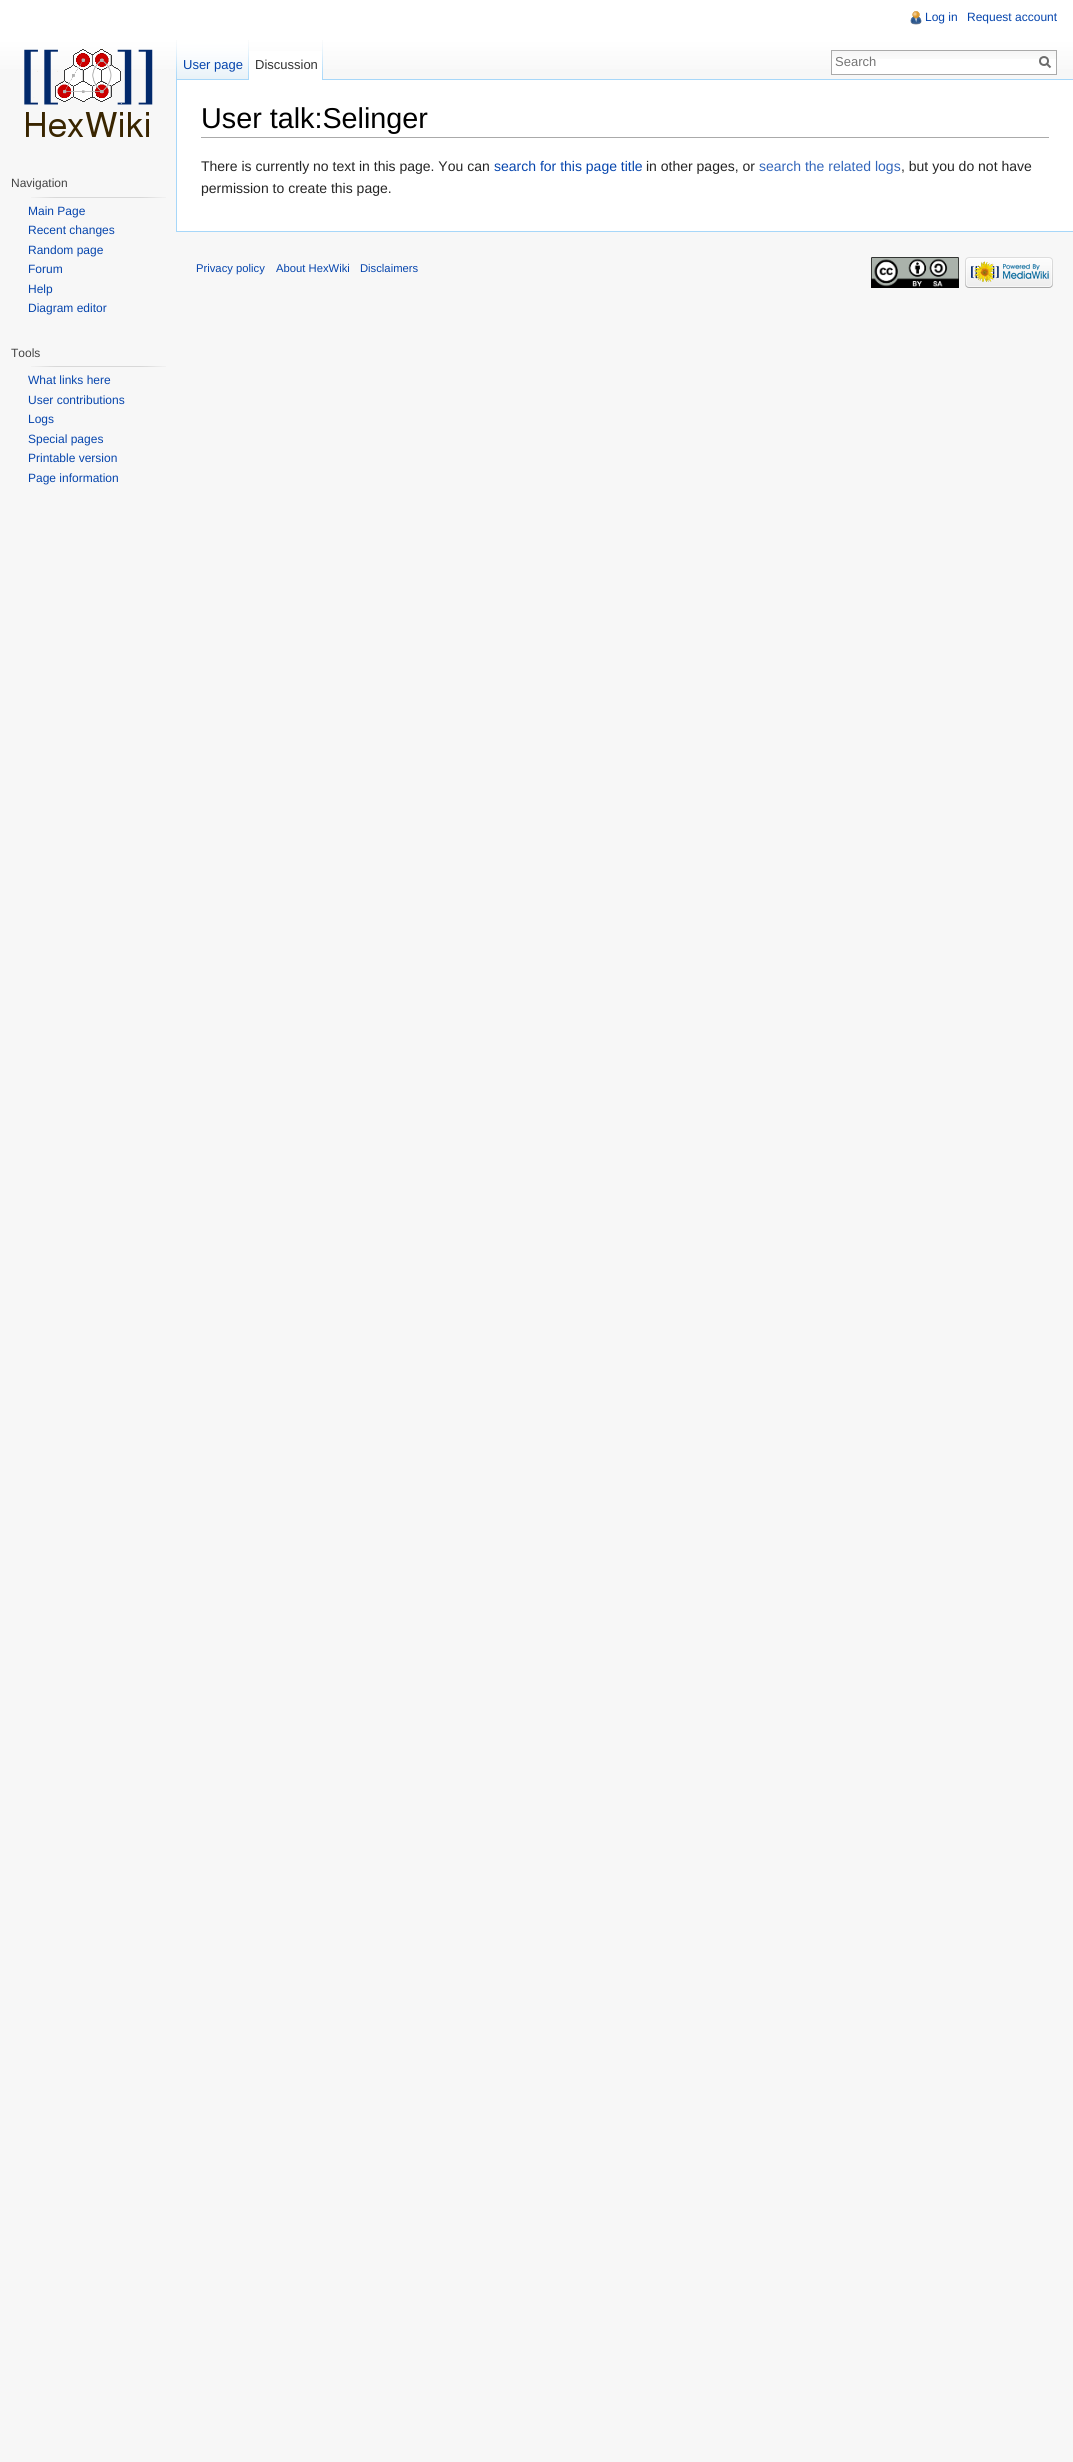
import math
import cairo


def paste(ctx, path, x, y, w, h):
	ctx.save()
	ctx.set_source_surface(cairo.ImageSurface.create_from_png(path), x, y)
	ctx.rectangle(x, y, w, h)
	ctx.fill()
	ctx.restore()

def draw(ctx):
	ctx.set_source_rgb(0.965, 0.965, 0.965)
	ctx.paint()
	gradient = cairo.LinearGradient(537, 0, 537, 80)
	gradient.add_color_stop_rgba(0.5, 1, 1, 1, 1)
	gradient.add_color_stop_rgba(1, 0.965, 0.965, 0.965, 1)
	ctx.set_source(gradient)
	ctx.rectangle(0, 0, 1073, 69)
	ctx.fill()
	paste(ctx, 'media/1.png', 910, 11, 12, 14)
	ctx.select_font_face('Liberation Sans')
	ctx.set_font_size(12)
	ctx.set_source_rgb(0.024, 0.271, 0.678)
	ctx.move_to(925, 21)
	ctx.show_text('Log in')
	ctx.move_to(967, 21)
	ctx.show_text('Request account')
	paste(ctx, 'media/2.png', 176, 40, 1, 39)
	paste(ctx, 'media/3.png', 177, 40, 72, 40)
	paste(ctx, 'media/4.png', 248, 40, 1, 39)
	ctx.set_font_size(13)
	ctx.move_to(183, 69)
	ctx.show_text('User page')
	ctx.set_source_rgb(1, 1, 1)
	ctx.rectangle(249, 51, 73, 29)
	ctx.fill()
	paste(ctx, 'media/5.png', 322, 40, 1, 40)
	ctx.set_source_rgb(0.2, 0.2, 0.2)
	ctx.move_to(255, 69)
	ctx.show_text('Discussion')
	ctx.set_source_rgb(1, 1, 1)
	ctx.rectangle(832, 59, 224, 15)
	ctx.fill()
	paste(ctx, 'media/6.png', 832, 51, 224, 8)
	ctx.rectangle(831.5, 50.5, 225, 24)
	ctx.set_source_rgb(0.667, 0.667, 0.667)
	ctx.set_line_width(1)
	ctx.stroke()
	ctx.set_source_rgb(0.459, 0.459, 0.459)
	ctx.move_to(835, 66)
	ctx.show_text('Search')
	ctx.new_path()
	ctx.move_to(1050.5, 67.5)
	ctx.line_to(1046.5, 63.5)
	ctx.set_source_rgb(0.424, 0.424, 0.424)
	ctx.set_line_width(2)
	ctx.stroke()
	ctx.arc(1044, 61, 4, 0, 2 * math.pi)
	ctx.stroke()
	paste(ctx, 'media/7.png', 24, 49, 129, 88)
	ctx.set_font_size(12)
	ctx.set_source_rgb(0.267, 0.267, 0.267)
	ctx.move_to(11, 187)
	ctx.show_text('Navigation')
	paste(ctx, 'media/8.png', 31, 197, 135, 1)
	ctx.set_source_rgb(0.024, 0.271, 0.678)
	for x, y, s in [
		(28, 215, 'Main Page'),
		(28, 234, 'Recent changes'),
		(28, 254, 'Random page'),
		(28, 273, 'Forum'),
		(28, 293, 'Help'),
		(28, 312, 'Diagram editor'),
	]:
		ctx.move_to(x, y)
		ctx.show_text(s)
	ctx.set_source_rgb(0.267, 0.267, 0.267)
	ctx.move_to(11, 357)
	ctx.show_text('Tools')
	paste(ctx, 'media/8.png', 31, 366, 135, 1)
	ctx.set_source_rgb(0.024, 0.271, 0.678)
	for x, y, s in [
		(28, 384, 'What links here'),
		(28, 404, 'User contributions'),
		(28, 423, 'Logs'),
		(28, 443, 'Special pages'),
		(28, 462, 'Printable version'),
		(28, 482, 'Page information'),
	]:
		ctx.move_to(x, y)
		ctx.show_text(s)
	ctx.set_source_rgb(1, 1, 1)
	ctx.rectangle(177, 80, 896, 151)
	ctx.fill()
	ctx.set_source_rgb(0.655, 0.843, 0.976)
	ctx.rectangle(323, 79, 750, 1)
	ctx.rectangle(176, 231, 897, 1)
	ctx.rectangle(176, 79, 1, 153)
	ctx.fill()
	ctx.set_source_rgb(0.667, 0.667, 0.667)
	ctx.rectangle(201, 137, 848, 1)
	ctx.fill()
	ctx.set_font_size(28.75)
	ctx.set_source_rgb(0, 0, 0)
	ctx.move_to(201, 128)
	ctx.show_text('User talk:Selinger')
	ctx.set_font_size(14)
	ctx.set_source_rgb(0.145, 0.145, 0.145)
	ctx.move_to(201, 171)
	ctx.show_text('There is currently no text in this page. You can')
	ctx.set_source_rgb(0.024, 0.271, 0.678)
	ctx.move_to(494, 171)
	ctx.show_text('search for this page title')
	ctx.set_source_rgb(0.145, 0.145, 0.145)
	ctx.move_to(646, 171)
	ctx.show_text('in other pages, or')
	ctx.set_source_rgb(0.2, 0.4, 0.733)
	ctx.move_to(759, 171)
	ctx.show_text('search the related logs')
	ctx.set_source_rgb(0.145, 0.145, 0.145)
	ctx.move_to(901, 171)
	ctx.show_text(', but you do not have')
	ctx.move_to(201, 193)
	ctx.show_text('permission to create this page.')
	ctx.set_font_size(11.25)
	ctx.set_source_rgb(0.024, 0.271, 0.678)
	for x, y, s in [
		(196, 272, 'Privacy policy'),
		(276, 272, 'About HexWiki'),
		(360, 272, 'Disclaimers'),
	]:
		ctx.move_to(x, y)
		ctx.show_text(s)
	paste(ctx, 'media/9.png', 871, 257, 88, 31)
	paste(ctx, 'media/10.png', 965, 257, 88, 31)


surface = cairo.ImageSurface(cairo.FORMAT_RGB24, 1073, 2462)
ctx = cairo.Context(surface)
options = cairo.FontOptions()
options.set_hint_metrics(cairo.HINT_METRICS_OFF)
options.set_hint_style(cairo.HINT_STYLE_NONE)
ctx.set_font_options(options)
ctx.set_miter_limit(4)
draw(ctx)
surface.write_to_png('image.png')
